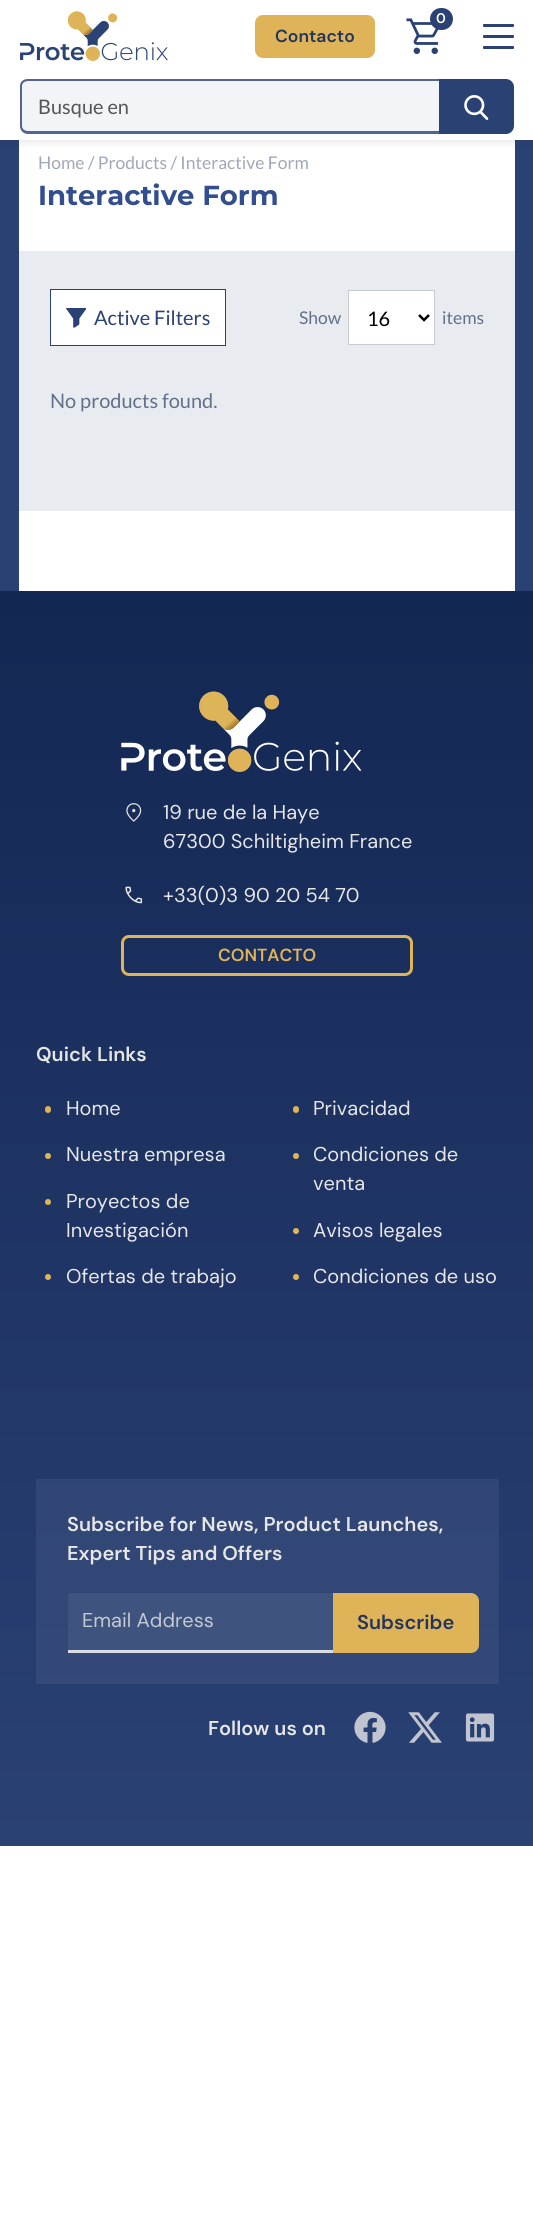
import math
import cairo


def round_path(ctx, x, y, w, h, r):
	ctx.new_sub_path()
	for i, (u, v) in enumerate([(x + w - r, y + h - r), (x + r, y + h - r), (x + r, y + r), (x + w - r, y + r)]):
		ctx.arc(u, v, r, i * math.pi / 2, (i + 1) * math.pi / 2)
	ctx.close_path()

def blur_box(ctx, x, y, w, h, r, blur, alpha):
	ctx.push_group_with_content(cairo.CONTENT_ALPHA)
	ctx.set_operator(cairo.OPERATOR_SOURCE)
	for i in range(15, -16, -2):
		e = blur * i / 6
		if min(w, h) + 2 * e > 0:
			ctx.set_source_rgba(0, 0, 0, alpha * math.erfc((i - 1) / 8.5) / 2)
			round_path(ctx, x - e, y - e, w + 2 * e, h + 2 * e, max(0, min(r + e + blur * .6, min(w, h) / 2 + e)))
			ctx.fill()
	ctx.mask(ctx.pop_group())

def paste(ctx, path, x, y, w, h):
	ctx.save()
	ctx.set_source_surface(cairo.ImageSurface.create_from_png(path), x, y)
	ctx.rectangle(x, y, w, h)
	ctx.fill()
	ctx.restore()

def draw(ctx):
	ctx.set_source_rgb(1, 1, 1)
	ctx.paint()
	paste(ctx, 'media/1.png', 20, 11, 148, 50)
	paste(ctx, 'media/2.png', 406, 18, 33, 36)
	ctx.set_source_rgb(0.165, 0.255, 0.455)
	round_path(ctx, 430, 8, 23, 22, 11)
	ctx.fill()
	ctx.set_source_rgb(0.875, 0.706, 0.345)
	round_path(ctx, 256.5, 16.5, 117, 40, 6.5)
	ctx.fill_preserve()
	ctx.set_line_width(3)
	ctx.stroke()
	ctx.set_source_rgb(0.165, 0.255, 0.455)
	round_path(ctx, 483, 24, 31, 3, 1)
	ctx.fill()
	round_path(ctx, 483, 35, 31, 3, 1)
	ctx.fill()
	round_path(ctx, 483, 46, 31, 3, 1)
	ctx.fill()
	ctx.set_source_rgb(0.949, 0.957, 0.969)
	ctx.new_path()
	ctx.move_to(28, 79)
	ctx.line_to(439, 79)
	ctx.line_to(439, 134)
	ctx.line_to(28, 134)
	ctx.curve_to(23.5, 134, 20, 130.5, 20, 126)
	ctx.line_to(20, 87)
	ctx.curve_to(20, 82.5, 23.5, 79, 28, 79)
	ctx.close_path()
	ctx.fill()
	ctx.set_source_rgba(0.165, 0.255, 0.455, 0.8)
	ctx.set_fill_rule(cairo.FILL_RULE_EVEN_ODD)
	ctx.new_path()
	ctx.move_to(28, 79)
	ctx.line_to(439, 79)
	ctx.line_to(439, 134)
	ctx.line_to(28, 134)
	ctx.curve_to(23, 134, 20, 130, 20, 126)
	ctx.line_to(20, 86)
	ctx.curve_to(20, 82, 23, 79, 28, 79)
	ctx.close_path()
	ctx.move_to(28, 81)
	ctx.line_to(439, 81)
	ctx.line_to(439, 131)
	ctx.line_to(28, 131)
	ctx.curve_to(25, 131, 22, 129, 22, 126)
	ctx.line_to(22, 86)
	ctx.curve_to(22, 83, 25, 81, 28, 81)
	ctx.close_path()
	ctx.fill()
	ctx.set_source_rgb(0.165, 0.255, 0.455)
	ctx.new_path()
	ctx.move_to(440.5, 80.5)
	ctx.line_to(506, 80.5)
	ctx.curve_to(509.5, 80.5, 512.5, 83.5, 512.5, 87)
	ctx.line_to(512.5, 126)
	ctx.curve_to(512.5, 129.5, 509.5, 132.5, 506, 132.5)
	ctx.line_to(440.5, 132.5)
	ctx.close_path()
	ctx.fill_preserve()
	ctx.stroke()
	paste(ctx, 'media/3.png', 464, 95, 25, 25)
	ctx.rectangle(0, 140, 533, 451)
	ctx.fill()
	ctx.set_source_rgb(1, 1, 1)
	ctx.rectangle(19, 140, 496, 111)
	ctx.fill()
	ctx.save()
	ctx.set_fill_rule(cairo.FILL_RULE_WINDING)
	ctx.rectangle(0, 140, 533, 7)
	ctx.clip()
	ctx.set_source_rgb(0.149, 0.149, 0.149)
	blur_box(ctx, 0, 0, 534, 140, 0, 6, 0.15)
	ctx.restore()
	ctx.select_font_face('DM Sans SemiBold')
	ctx.set_font_size(14)
	ctx.move_to(436, 23)
	ctx.show_text('0')
	ctx.set_font_size(17.5)
	ctx.set_source_rgb(0.133, 0.208, 0.369)
	ctx.move_to(275, 42)
	ctx.show_text('Contacto')
	ctx.select_font_face('Lato')
	ctx.set_font_size(20)
	ctx.set_source_rgb(0.333, 0.337, 0.341)
	ctx.move_to(38, 114)
	ctx.show_text('Busque en')
	ctx.set_source_rgb(0.91, 0.922, 0.941)
	ctx.rectangle(19, 251, 496, 260)
	ctx.fill()
	ctx.set_font_size(17.5)
	ctx.set_source_rgb(0.627, 0.655, 0.722)
	ctx.move_to(38, 169)
	ctx.show_text('Home / Products / Interactive Form')
	ctx.select_font_face('Montserrat Thin')
	ctx.set_font_size(27.5)
	ctx.set_source_rgb(0.196, 0.306, 0.557)
	ctx.move_to(38, 205)
	ctx.show_text('Interactive Form')
	ctx.set_source_rgb(1, 1, 1)
	ctx.rectangle(50.5, 289.5, 175, 56)
	ctx.fill_preserve()
	ctx.set_source_rgb(0.165, 0.255, 0.455)
	ctx.set_line_width(1)
	ctx.stroke()
	paste(ctx, 'media/4.png', 66, 308, 20, 20)
	ctx.select_font_face('Lato')
	ctx.set_font_size(20)
	ctx.move_to(94, 325)
	ctx.show_text('Active Filters')
	ctx.set_font_size(17.5)
	ctx.set_source_rgb(0.388, 0.439, 0.541)
	ctx.move_to(299, 324)
	ctx.show_text('Show')
	ctx.set_source_rgb(1, 1, 1)
	ctx.rectangle(348.5, 290.5, 86, 54)
	ctx.fill_preserve()
	ctx.set_source_rgb(0.776, 0.796, 0.827)
	ctx.stroke()
	ctx.new_path()
	ctx.move_to(419, 315)
	ctx.line_to(424, 320)
	ctx.line_to(429, 315)
	ctx.set_source_rgb(0, 0, 0)
	ctx.set_line_width(2.5)
	ctx.stroke()
	ctx.set_font_size(20)
	ctx.move_to(367, 326)
	ctx.show_text('16')
	ctx.set_font_size(17.5)
	ctx.set_source_rgb(0.388, 0.439, 0.541)
	ctx.move_to(442, 324)
	ctx.show_text('items')
	ctx.set_font_size(20)
	ctx.move_to(50, 408)
	ctx.show_text('No products found.')
	ctx.set_source_rgb(1, 1, 1)
	ctx.rectangle(19, 511, 496, 80)
	ctx.fill()
	gradient = cairo.LinearGradient(267, 591, 267, 1846)
	gradient.add_color_stop_rgba(0, 0.075, 0.153, 0.325, 1)
	gradient.add_color_stop_rgba(1, 0.165, 0.255, 0.455, 1)
	ctx.set_source(gradient)
	ctx.rectangle(0, 591, 533, 1255)
	ctx.fill()
	paste(ctx, 'media/5.png', 121, 691, 240, 81)
	paste(ctx, 'media/6.png', 126, 803, 16, 19)
	ctx.select_font_face('DM Sans')
	ctx.set_source_rgb(0.902, 0.902, 0.902)
	ctx.move_to(163, 819)
	ctx.show_text('19 rue de la Haye')
	ctx.move_to(163, 848)
	ctx.show_text('67300 Schiltigheim France')
	paste(ctx, 'media/7.png', 125, 886, 18, 18)
	ctx.move_to(163, 902)
	ctx.show_text('+33(0)3 90 20 54 70')
	round_path(ctx, 122.5, 936.5, 289, 38, 6.5)
	ctx.set_source_rgb(0.875, 0.706, 0.345)
	ctx.set_line_width(3)
	ctx.stroke()
	ctx.select_font_face('DM Sans SemiBold')
	ctx.set_font_size(17.5)
	ctx.move_to(218, 961)
	ctx.show_text('CONTACTO')
	ctx.set_font_size(20)
	ctx.set_source_rgb(0.902, 0.902, 0.902)
	ctx.move_to(36, 1061)
	ctx.show_text('Quick Links')
	ctx.set_source_rgb(0.875, 0.706, 0.345)
	round_path(ctx, 45, 1106, 6, 7, 3)
	ctx.fill()
	ctx.select_font_face('DM Sans')
	ctx.set_source_rgb(0.902, 0.902, 0.902)
	ctx.move_to(66, 1115)
	ctx.show_text('Home')
	ctx.set_source_rgb(0.875, 0.706, 0.345)
	round_path(ctx, 293, 1106, 6, 7, 3)
	ctx.fill()
	ctx.set_source_rgb(0.902, 0.902, 0.902)
	ctx.move_to(313, 1115)
	ctx.show_text('Privacidad')
	ctx.set_source_rgb(0.875, 0.706, 0.345)
	ctx.new_path()
	ctx.arc(48, 1156, 3, 0, 2 * math.pi)
	ctx.fill()
	ctx.set_source_rgb(0.902, 0.902, 0.902)
	ctx.move_to(66, 1161)
	ctx.show_text('Nuestra empresa')
	ctx.set_source_rgb(0.875, 0.706, 0.345)
	ctx.new_path()
	ctx.arc(296, 1156, 3, 0, 2 * math.pi)
	ctx.fill()
	ctx.set_source_rgb(0.902, 0.902, 0.902)
	ctx.move_to(313, 1161)
	ctx.show_text('Condiciones de')
	ctx.move_to(313, 1190)
	ctx.show_text('venta')
	ctx.set_source_rgb(0.875, 0.706, 0.345)
	ctx.new_path()
	ctx.arc(48, 1202, 3, 0, 2 * math.pi)
	ctx.fill()
	ctx.set_source_rgb(0.902, 0.902, 0.902)
	ctx.move_to(66, 1208)
	ctx.show_text('Proyectos de')
	ctx.move_to(66, 1237)
	ctx.show_text('Investigación')
	ctx.set_source_rgb(0.875, 0.706, 0.345)
	ctx.new_path()
	ctx.arc(296, 1231, 3, 0, 2 * math.pi)
	ctx.fill()
	ctx.set_source_rgb(0.902, 0.902, 0.902)
	ctx.move_to(313, 1237)
	ctx.show_text('Avisos legales')
	ctx.set_source_rgb(0.875, 0.706, 0.345)
	ctx.new_path()
	ctx.arc(48, 1277, 3, 0, 2 * math.pi)
	ctx.fill()
	ctx.set_source_rgb(0.902, 0.902, 0.902)
	ctx.move_to(66, 1283)
	ctx.show_text('Ofertas de trabajo')
	ctx.set_source_rgb(0.875, 0.706, 0.345)
	ctx.new_path()
	ctx.arc(296, 1277, 3, 0, 2 * math.pi)
	ctx.fill()
	ctx.set_source_rgb(0.902, 0.902, 0.902)
	ctx.move_to(313, 1283)
	ctx.show_text('Condiciones de uso')
	ctx.set_source_rgba(1, 1, 1, 0.06)
	ctx.rectangle(36, 1479, 463, 205)
	ctx.fill()
	ctx.select_font_face('DM Sans SemiBold')
	ctx.set_source_rgb(0.902, 0.902, 0.902)
	ctx.move_to(67, 1531)
	ctx.show_text('Subscribe for News, Product Launches,')
	ctx.move_to(67, 1560)
	ctx.show_text('Expert Tips and Offers')
	ctx.set_source_rgb(0.247, 0.325, 0.498)
	ctx.new_path()
	ctx.move_to(70.5, 1593)
	ctx.line_to(333, 1593)
	ctx.line_to(333, 1653)
	ctx.line_to(68, 1653)
	ctx.line_to(68, 1595.5)
	ctx.curve_to(68, 1594, 69, 1593, 70.5, 1593)
	ctx.close_path()
	ctx.fill()
	ctx.set_source_rgb(0.851, 0.867, 0.898)
	ctx.rectangle(68, 1650, 265, 3)
	ctx.fill()
	ctx.select_font_face('DM Sans')
	ctx.set_source_rgb(0.773, 0.788, 0.82)
	ctx.move_to(82, 1627)
	ctx.show_text('Email Address')
	ctx.set_source_rgb(0.875, 0.706, 0.345)
	ctx.new_path()
	ctx.move_to(334.5, 1594.5)
	ctx.line_to(471, 1594.5)
	ctx.curve_to(474.5, 1594.5, 477.5, 1597.5, 477.5, 1601)
	ctx.line_to(477.5, 1645)
	ctx.curve_to(477.5, 1648.5, 474.5, 1651.5, 471, 1651.5)
	ctx.line_to(334.5, 1651.5)
	ctx.close_path()
	ctx.fill_preserve()
	ctx.stroke()
	ctx.select_font_face('DM Sans SemiBold')
	ctx.set_source_rgb(0.133, 0.208, 0.369)
	ctx.move_to(357, 1629)
	ctx.show_text('Subscribe')
	ctx.set_source_rgb(0.902, 0.902, 0.902)
	ctx.move_to(208, 1735)
	ctx.show_text('Follow us on')
	paste(ctx, 'media/8.png', 354, 1711, 32, 32)
	paste(ctx, 'media/9.png', 408, 1712, 34, 31)
	paste(ctx, 'media/10.png', 465, 1713, 30, 29)


surface = cairo.ImageSurface(cairo.FORMAT_RGB24, 533, 2231)
ctx = cairo.Context(surface)
options = cairo.FontOptions()
options.set_hint_metrics(cairo.HINT_METRICS_OFF)
options.set_hint_style(cairo.HINT_STYLE_NONE)
ctx.set_font_options(options)
ctx.set_miter_limit(4)
draw(ctx)
surface.write_to_png('image.png')
